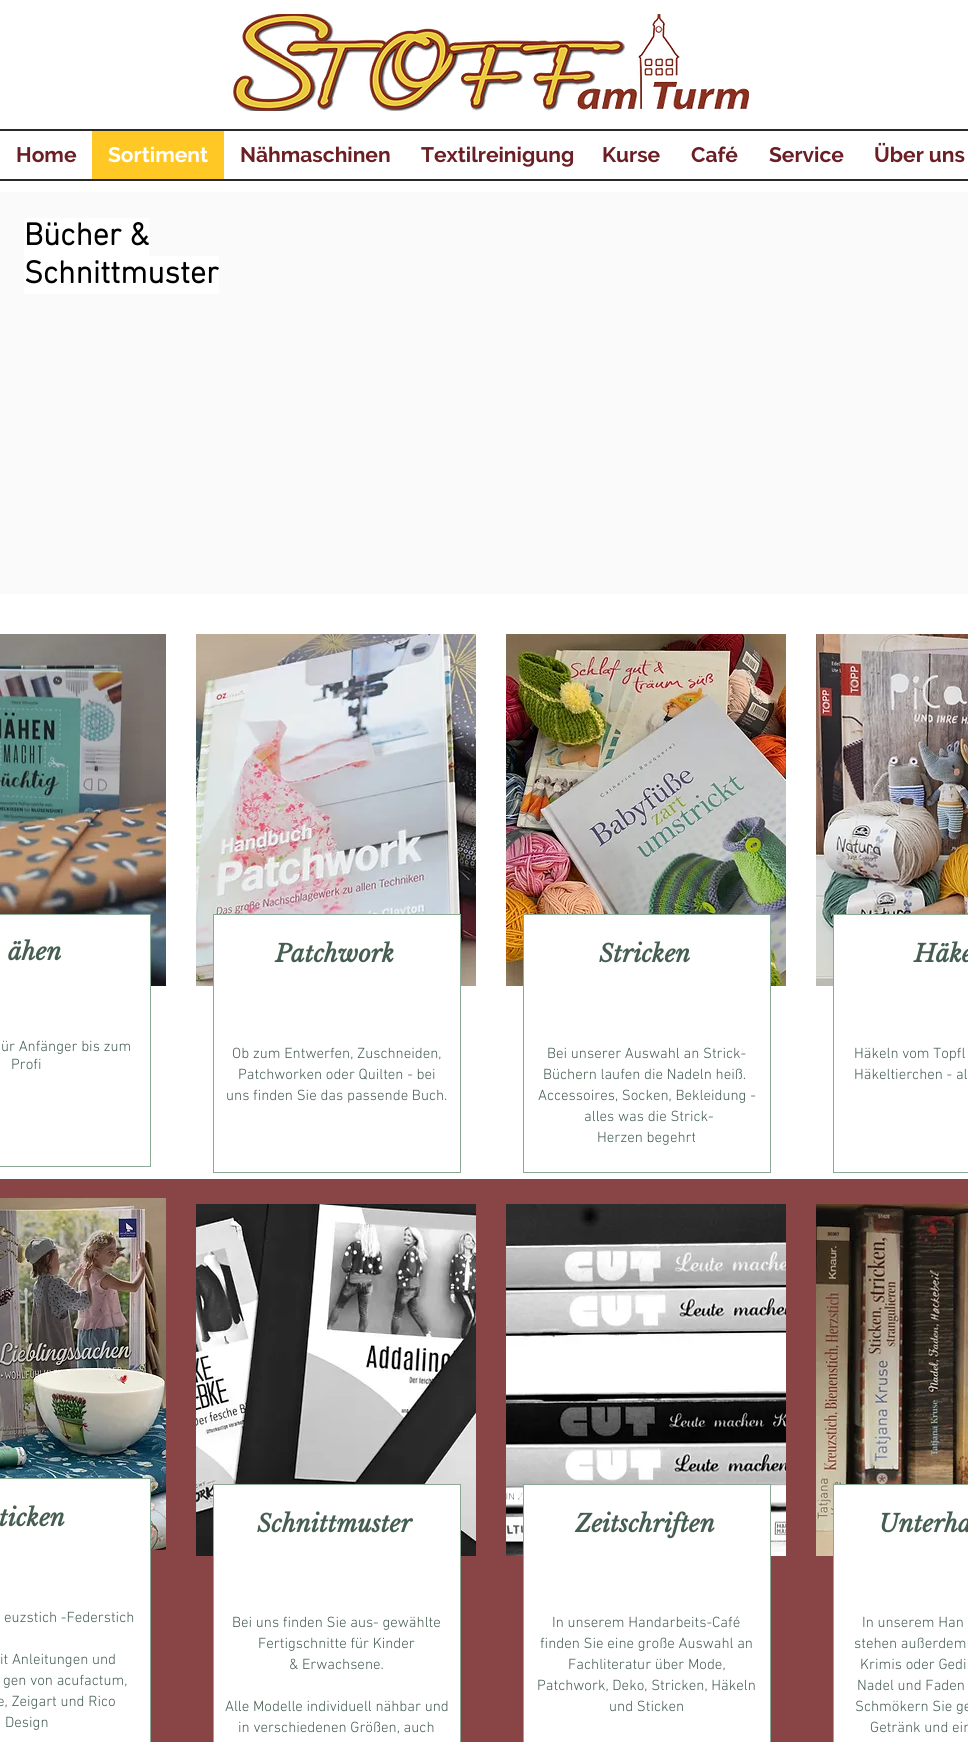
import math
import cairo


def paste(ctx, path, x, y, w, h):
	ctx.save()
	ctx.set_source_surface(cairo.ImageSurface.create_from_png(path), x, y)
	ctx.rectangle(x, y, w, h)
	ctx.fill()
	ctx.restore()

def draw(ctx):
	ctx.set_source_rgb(1, 1, 1)
	ctx.paint()
	paste(ctx, 'media/1.png', 232, 14, 517, 97)
	ctx.set_source_rgb(0.165, 0.165, 0.165)
	ctx.rectangle(0, 129, 968, 2)
	ctx.fill()
	ctx.rectangle(0, 179, 968, 2)
	ctx.fill()
	ctx.select_font_face('Raleway', cairo.FONT_SLANT_NORMAL, cairo.FONT_WEIGHT_BOLD)
	ctx.set_font_size(21)
	ctx.set_source_rgb(0.42, 0.118, 0.137)
	ctx.move_to(16, 162)
	ctx.show_text('Home')
	ctx.set_source_rgb(1, 0.784, 0.141)
	ctx.rectangle(92, 131, 132, 48)
	ctx.fill()
	ctx.set_source_rgb(1, 1, 1)
	ctx.move_to(108, 162)
	ctx.show_text('Sortiment')
	ctx.set_source_rgb(0.42, 0.118, 0.137)
	for x, y, s in [
		(240, 162, 'Nähmaschinen'),
		(421, 162, 'Textilreinigung'),
		(602, 162, 'Kurse'),
		(691, 162, 'Café'),
		(769, 162, 'Service'),
		(874, 162, 'Über uns'),
	]:
		ctx.move_to(x, y)
		ctx.show_text(s)
	ctx.set_source_rgb(0.98, 0.98, 0.98)
	ctx.rectangle(0, 192, 968, 402)
	ctx.fill()
	ctx.set_source_rgb(1, 1, 1)
	ctx.rectangle(24, 218, 125, 38)
	ctx.fill()
	ctx.select_font_face('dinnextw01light', cairo.FONT_SLANT_NORMAL, cairo.FONT_WEIGHT_BOLD)
	ctx.set_font_size(32)
	ctx.set_source_rgb(0, 0, 0)
	ctx.move_to(24, 245)
	ctx.show_text('Bücher &')
	ctx.set_source_rgb(1, 1, 1)
	ctx.rectangle(24, 256, 195, 38)
	ctx.fill()
	ctx.set_source_rgb(0, 0, 0)
	ctx.move_to(24, 283)
	ctx.show_text('Schnittmuster')
	paste(ctx, 'media/2.png', 0, 634, 166, 352)
	ctx.set_source_rgb(1, 1, 1)
	ctx.rectangle(0, 915, 150, 71)
	ctx.fill()
	ctx.rectangle(-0.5, 914.5, 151, 252)
	ctx.set_source_rgb(0.545, 0.667, 0.584)
	ctx.set_line_width(1)
	ctx.stroke()
	ctx.select_font_face('Libre Baskerville', cairo.FONT_SLANT_ITALIC, cairo.FONT_WEIGHT_BOLD)
	ctx.set_font_size(24)
	ctx.set_source_rgb(0.275, 0.369, 0.322)
	ctx.move_to(8, 960)
	ctx.show_text('ähen')
	ctx.select_font_face('dinnextw01light Light')
	ctx.set_font_size(15)
	ctx.move_to(1, 1051)
	ctx.show_text('ür Anfänger bis zum')
	ctx.move_to(11, 1069)
	ctx.show_text('Profi')
	ctx.set_source_rgb(0.537, 0.267, 0.275)
	ctx.rectangle(0, 1179, 968, 563)
	ctx.fill()
	paste(ctx, 'media/3.png', 0, 1198, 166, 352)
	ctx.set_source_rgb(1, 1, 1)
	ctx.rectangle(-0.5, 1478.5, 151, 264)
	ctx.fill_preserve()
	ctx.set_source_rgb(0.545, 0.667, 0.584)
	ctx.stroke()
	ctx.select_font_face('Libre Baskerville', cairo.FONT_SLANT_ITALIC, cairo.FONT_WEIGHT_BOLD)
	ctx.set_font_size(24)
	ctx.set_source_rgb(0.275, 0.369, 0.322)
	ctx.move_to(-1, 1526)
	ctx.show_text('ticken')
	ctx.select_font_face('dinnextw01light Light')
	ctx.set_font_size(15)
	for x, y, s in [
		(4, 1622, 'euzstich -Federstich'),
		(0, 1664, 'it Anleitungen und'),
		(3, 1685, 'gen von acufactum,'),
		(-3, 1706, 'e, Zeigart und Rico'),
		(5, 1727, 'Design'),
	]:
		ctx.move_to(x, y)
		ctx.show_text(s)
	paste(ctx, 'media/4.png', 196, 634, 280, 352)
	ctx.set_source_rgb(1, 1, 1)
	ctx.rectangle(214, 915, 246, 71)
	ctx.fill()
	ctx.rectangle(213.5, 914.5, 247, 258)
	ctx.set_source_rgb(0.545, 0.667, 0.584)
	ctx.stroke()
	ctx.select_font_face('Libre Baskerville', cairo.FONT_SLANT_ITALIC, cairo.FONT_WEIGHT_BOLD)
	ctx.set_font_size(24)
	ctx.set_source_rgb(0.275, 0.369, 0.322)
	ctx.move_to(275, 962)
	ctx.show_text('Patchwork')
	ctx.select_font_face('dinnextw01light Light')
	ctx.set_font_size(15)
	for x, y, s in [
		(232, 1058, 'Ob zum Entwerfen, Zuschneiden,'),
		(238, 1079, 'Patchworken oder Quilten - bei'),
		(226, 1100, 'uns finden Sie das passende Buch.'),
	]:
		ctx.move_to(x, y)
		ctx.show_text(s)
	paste(ctx, 'media/5.png', 196, 1204, 280, 352)
	ctx.set_source_rgb(1, 1, 1)
	ctx.rectangle(213.5, 1484.5, 247, 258)
	ctx.fill_preserve()
	ctx.set_source_rgb(0.545, 0.667, 0.584)
	ctx.stroke()
	ctx.select_font_face('Libre Baskerville', cairo.FONT_SLANT_ITALIC, cairo.FONT_WEIGHT_BOLD)
	ctx.set_font_size(24)
	ctx.set_source_rgb(0.275, 0.369, 0.322)
	ctx.move_to(257, 1532)
	ctx.show_text('Schnittmuster')
	ctx.select_font_face('dinnextw01light Light')
	ctx.set_font_size(15)
	for x, y, s in [
		(232, 1627, 'Bei uns finden Sie aus- gewählte'),
		(258, 1648, 'Fertigschnitte für Kinder'),
		(289, 1669, '& Erwachsene.'),
		(225, 1711, 'Alle Modelle individuell nähbar und'),
		(238, 1732, 'in verschiedenen Größen, auch'),
	]:
		ctx.move_to(x, y)
		ctx.show_text(s)
	paste(ctx, 'media/6.png', 506, 634, 280, 352)
	ctx.set_source_rgb(1, 1, 1)
	ctx.rectangle(524, 915, 246, 71)
	ctx.fill()
	ctx.rectangle(523.5, 914.5, 247, 258)
	ctx.set_source_rgb(0.545, 0.667, 0.584)
	ctx.stroke()
	ctx.select_font_face('Libre Baskerville', cairo.FONT_SLANT_ITALIC, cairo.FONT_WEIGHT_BOLD)
	ctx.set_font_size(24)
	ctx.set_source_rgb(0.275, 0.369, 0.322)
	ctx.move_to(599, 962)
	ctx.show_text('Stricken')
	ctx.select_font_face('dinnextw01light Light')
	ctx.set_font_size(15)
	for x, y, s in [
		(547, 1058, 'Bei unserer Auswahl an Strick-'),
		(543, 1079, 'Büchern laufen die Nadeln heiß.'),
		(538, 1100, 'Accessoires, Socken, Bekleidung -'),
		(584, 1121, 'alles was die Strick-'),
		(597, 1142, 'Herzen begehrt'),
	]:
		ctx.move_to(x, y)
		ctx.show_text(s)
	paste(ctx, 'media/7.png', 506, 1204, 280, 352)
	ctx.set_source_rgb(1, 1, 1)
	ctx.rectangle(523.5, 1484.5, 247, 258)
	ctx.fill_preserve()
	ctx.set_source_rgb(0.545, 0.667, 0.584)
	ctx.stroke()
	ctx.select_font_face('Libre Baskerville', cairo.FONT_SLANT_ITALIC, cairo.FONT_WEIGHT_BOLD)
	ctx.set_font_size(24)
	ctx.set_source_rgb(0.275, 0.369, 0.322)
	ctx.move_to(575, 1532)
	ctx.show_text('Zeitschriften')
	ctx.select_font_face('dinnextw01light Light')
	ctx.set_font_size(15)
	for x, y, s in [
		(552, 1627, 'In unserem Handarbeits-Café'),
		(540, 1648, 'finden Sie eine große Auswahl an'),
		(568, 1669, 'Fachliteratur über Mode,'),
		(537, 1690, 'Patchwork, Deko, Stricken, Häkeln'),
		(609, 1711, 'und Sticken'),
	]:
		ctx.move_to(x, y)
		ctx.show_text(s)
	paste(ctx, 'media/8.png', 816, 634, 152, 352)
	ctx.set_source_rgb(1, 1, 1)
	ctx.rectangle(834, 915, 134, 71)
	ctx.fill()
	ctx.rectangle(833.5, 914.5, 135, 258)
	ctx.set_source_rgb(0.545, 0.667, 0.584)
	ctx.stroke()
	ctx.select_font_face('Libre Baskerville', cairo.FONT_SLANT_ITALIC, cairo.FONT_WEIGHT_BOLD)
	ctx.set_font_size(24)
	ctx.set_source_rgb(0.275, 0.369, 0.322)
	ctx.move_to(914, 962)
	ctx.show_text('Häke')
	ctx.select_font_face('dinnextw01light Light')
	ctx.set_font_size(15)
	ctx.move_to(854, 1058)
	ctx.show_text('Häkeln vom Topfl')
	ctx.move_to(854, 1079)
	ctx.show_text('Häkeltierchen - al')
	paste(ctx, 'media/9.png', 816, 1204, 152, 352)
	ctx.set_source_rgb(1, 1, 1)
	ctx.rectangle(833.5, 1484.5, 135, 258)
	ctx.fill_preserve()
	ctx.set_source_rgb(0.545, 0.667, 0.584)
	ctx.stroke()
	ctx.select_font_face('Libre Baskerville', cairo.FONT_SLANT_ITALIC, cairo.FONT_WEIGHT_BOLD)
	ctx.set_font_size(24)
	ctx.set_source_rgb(0.275, 0.369, 0.322)
	ctx.move_to(879, 1532)
	ctx.show_text('Unterha')
	ctx.select_font_face('dinnextw01light Light')
	ctx.set_font_size(15)
	for x, y, s in [
		(862, 1627, 'In unserem Han'),
		(854, 1648, 'stehen außerdem'),
		(860, 1669, 'Krimis oder Gedi'),
		(857, 1690, 'Nadel und Faden'),
		(855, 1711, 'Schmökern Sie ge'),
		(870, 1732, 'Getränk und ein'),
	]:
		ctx.move_to(x, y)
		ctx.show_text(s)


surface = cairo.ImageSurface(cairo.FORMAT_RGB24, 968, 1742)
ctx = cairo.Context(surface)
options = cairo.FontOptions()
options.set_hint_metrics(cairo.HINT_METRICS_OFF)
options.set_hint_style(cairo.HINT_STYLE_NONE)
ctx.set_font_options(options)
ctx.set_miter_limit(4)
draw(ctx)
surface.write_to_png('image.png')
